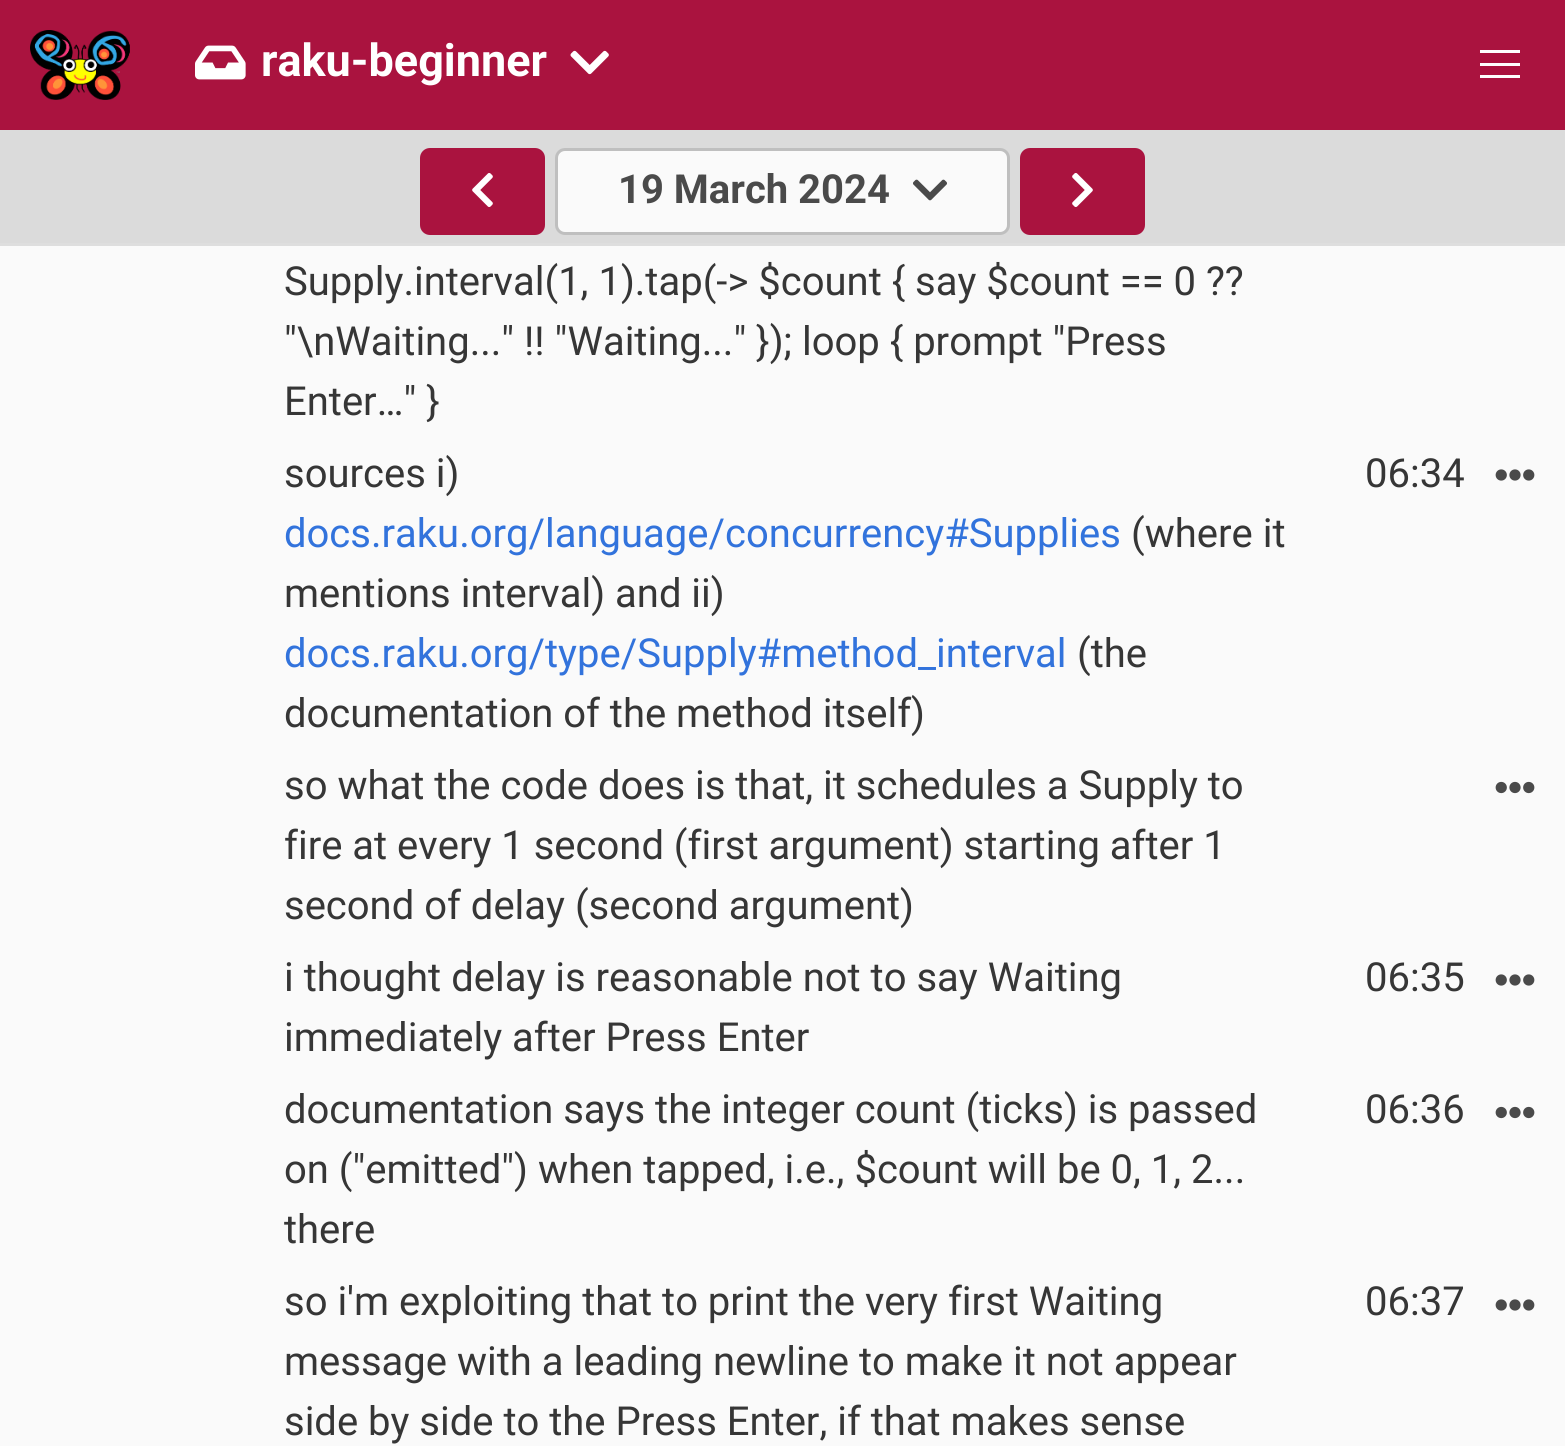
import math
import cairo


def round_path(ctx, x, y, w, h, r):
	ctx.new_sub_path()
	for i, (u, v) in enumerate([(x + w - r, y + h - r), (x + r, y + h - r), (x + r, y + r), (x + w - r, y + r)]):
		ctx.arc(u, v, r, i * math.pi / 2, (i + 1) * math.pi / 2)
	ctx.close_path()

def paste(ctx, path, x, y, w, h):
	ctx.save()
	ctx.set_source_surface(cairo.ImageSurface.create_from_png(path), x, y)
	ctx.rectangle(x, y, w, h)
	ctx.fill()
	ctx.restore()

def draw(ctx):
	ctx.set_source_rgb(0.98, 0.98, 0.98)
	ctx.paint()
	ctx.set_source_rgb(0.667, 0.075, 0.247)
	ctx.rectangle(0, 0, 1565, 130)
	ctx.fill()
	paste(ctx, 'media/1.png', 30, 30, 100, 70)
	paste(ctx, 'media/2.png', 195, 45, 51, 35)
	ctx.select_font_face('Roboto', cairo.FONT_SLANT_NORMAL, cairo.FONT_WEIGHT_BOLD)
	ctx.set_font_size(45)
	ctx.set_source_rgb(1, 1, 1)
	ctx.move_to(261, 76)
	ctx.show_text('raku-beginner')
	paste(ctx, 'media/3.png', 570, 50, 39, 25)
	ctx.rectangle(1480, 50, 40, 3)
	ctx.rectangle(1480, 63, 40, 3)
	ctx.rectangle(1480, 75, 40, 3)
	ctx.fill()
	ctx.set_source_rgb(0.859, 0.859, 0.859)
	ctx.rectangle(0, 130, 1565, 113)
	ctx.fill()
	ctx.set_source_rgb(0.871, 0.871, 0.871)
	ctx.rectangle(0, 243, 1565, 3)
	ctx.fill()
	ctx.set_source_rgb(0.667, 0.075, 0.247)
	round_path(ctx, 420, 148, 125, 87, 10)
	ctx.fill()
	paste(ctx, 'media/4.png', 472, 173, 21, 34)
	ctx.set_source_rgb(0.98, 0.98, 0.98)
	round_path(ctx, 556.5, 149.5, 452, 84, 8.5)
	ctx.fill_preserve()
	ctx.set_source_rgb(0.749, 0.749, 0.749)
	ctx.set_line_width(3)
	ctx.stroke()
	ctx.set_font_size(40)
	ctx.set_source_rgb(0.29, 0.29, 0.29)
	ctx.move_to(618, 203)
	ctx.show_text('19 March 2024')
	paste(ctx, 'media/5.png', 913, 179, 34, 22)
	ctx.set_source_rgb(0.667, 0.075, 0.247)
	round_path(ctx, 1020, 148, 125, 87, 10)
	ctx.fill()
	paste(ctx, 'media/6.png', 1072, 173, 21, 34)
	ctx.select_font_face('Roboto')
	ctx.set_source_rgb(0.212, 0.212, 0.212)
	for x, y, s in [
		(284, 295, 'Supply.interval(1, 1).tap(-> $count { say $count == 0 ??'),
		(284, 355, '"\\nWaiting..." !! "Waiting..." }); loop { prompt "Press'),
		(284, 415, 'Enter…" }'),
		(284, 487, 'sources i)'),
	]:
		ctx.move_to(x, y)
		ctx.show_text(s)
	ctx.set_source_rgb(0.196, 0.451, 0.863)
	ctx.move_to(284, 547)
	ctx.show_text('docs.raku.org/language/concurrency#Supplies')
	ctx.set_source_rgb(0.212, 0.212, 0.212)
	ctx.move_to(1131, 547)
	ctx.show_text('(where it')
	ctx.move_to(284, 607)
	ctx.show_text('mentions interval) and ii)')
	ctx.set_source_rgb(0.196, 0.451, 0.863)
	ctx.move_to(284, 667)
	ctx.show_text('docs.raku.org/type/Supply#method_interval')
	ctx.set_source_rgb(0.212, 0.212, 0.212)
	for x, y, s in [
		(1077, 667, '(the'),
		(284, 727, 'documentation of the method itself)'),
		(1365, 487, '06:34'),
	]:
		ctx.move_to(x, y)
		ctx.show_text(s)
	paste(ctx, 'media/7.png', 1495, 469, 40, 12)
	for x, y, s in [
		(284, 799, 'so what the code does is that, it schedules a Supply to'),
		(284, 859, 'fire at every 1 second (first argument) starting after 1'),
		(284, 919, 'second of delay (second argument)'),
	]:
		ctx.move_to(x, y)
		ctx.show_text(s)
	paste(ctx, 'media/8.png', 1495, 781, 40, 13)
	for x, y, s in [
		(284, 991, 'i thought delay is reasonable not to say Waiting'),
		(284, 1051, 'immediately after Press Enter'),
		(1365, 991, '06:35'),
	]:
		ctx.move_to(x, y)
		ctx.show_text(s)
	paste(ctx, 'media/7.png', 1495, 974, 40, 12)
	for x, y, s in [
		(284, 1123, 'documentation says the integer count (ticks) is passed'),
		(284, 1183, 'on ("emitted") when tapped, i.e., $count will be 0, 1, 2...'),
		(284, 1243, 'there'),
		(1365, 1123, '06:36'),
	]:
		ctx.move_to(x, y)
		ctx.show_text(s)
	paste(ctx, 'media/8.png', 1495, 1106, 40, 13)
	for x, y, s in [
		(284, 1315, 'so i\'m exploiting that to print the very first Waiting'),
		(284, 1375, 'message with a leading newline to make it not appear'),
		(284, 1435, 'side by side to the Press Enter, if that makes sense'),
		(1365, 1315, '06:37'),
	]:
		ctx.move_to(x, y)
		ctx.show_text(s)
	paste(ctx, 'media/7.png', 1495, 1299, 40, 12)


surface = cairo.ImageSurface(cairo.FORMAT_RGB24, 1565, 1446)
ctx = cairo.Context(surface)
options = cairo.FontOptions()
options.set_hint_metrics(cairo.HINT_METRICS_OFF)
options.set_hint_style(cairo.HINT_STYLE_NONE)
ctx.set_font_options(options)
ctx.set_miter_limit(4)
draw(ctx)
surface.write_to_png('image.png')
